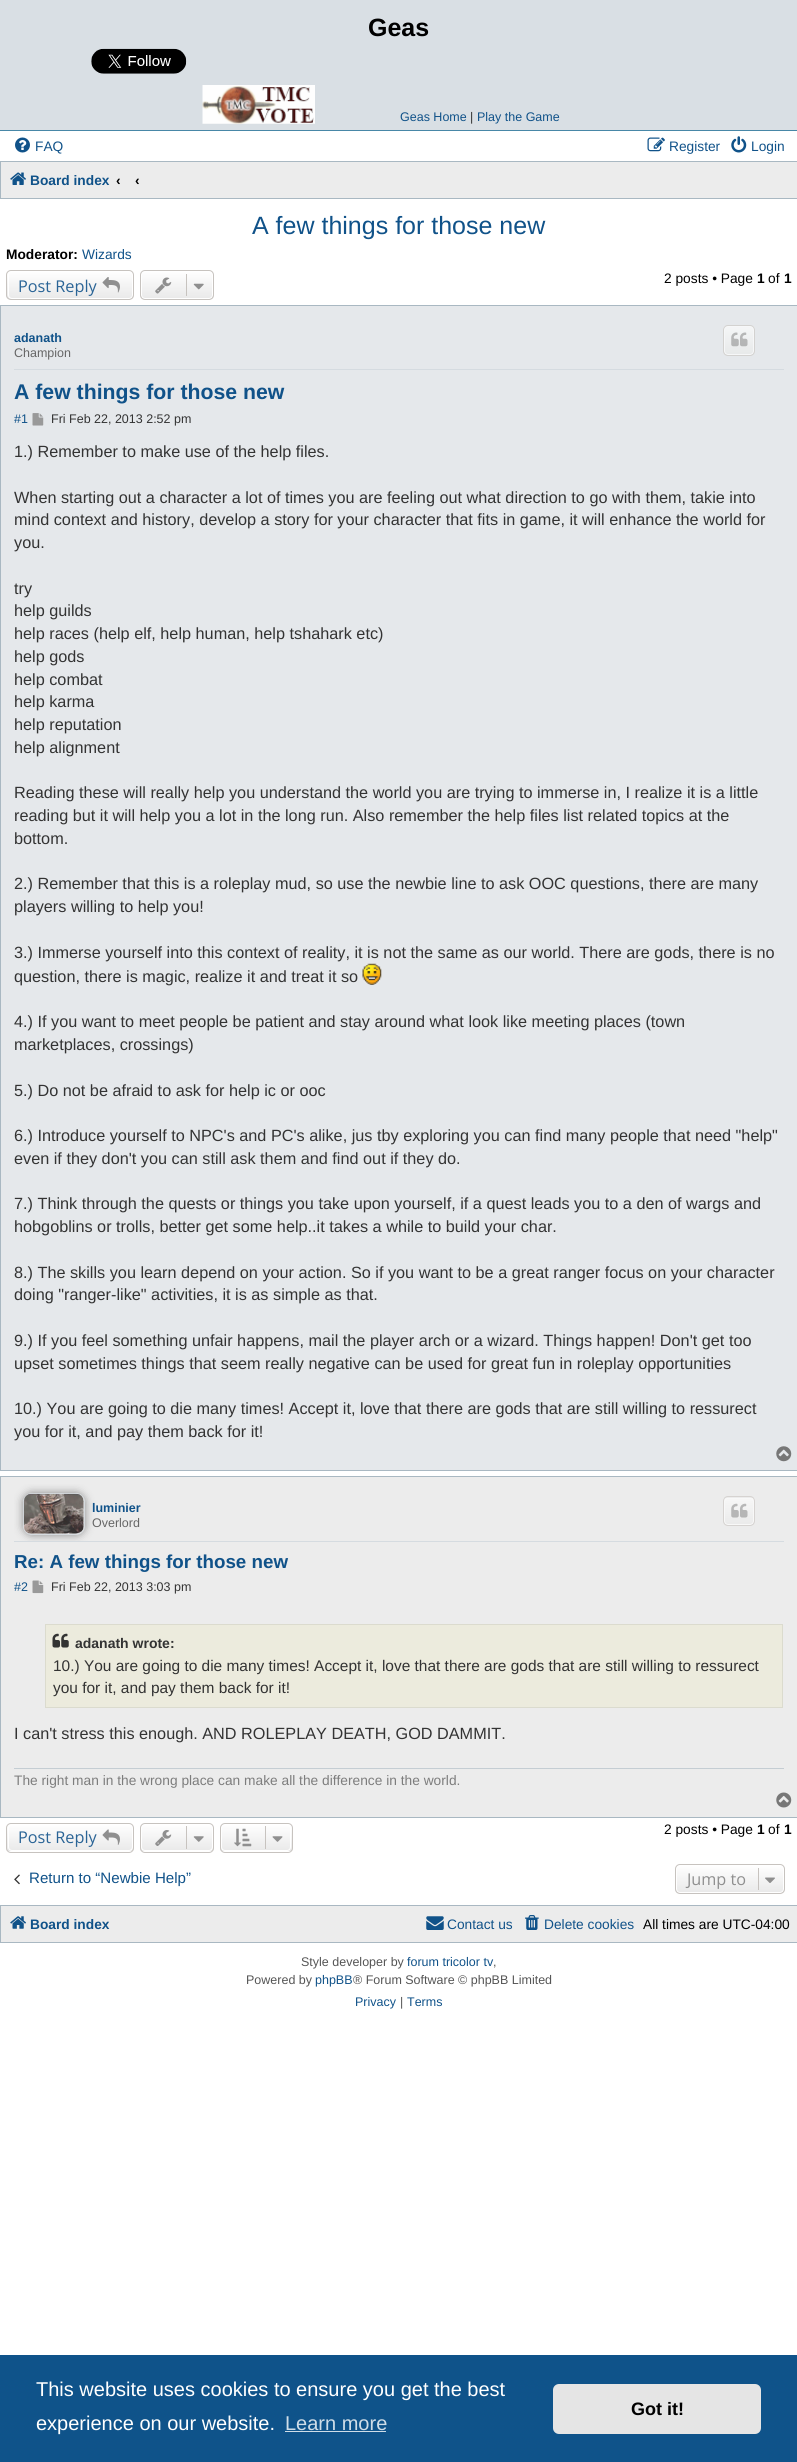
import math
import cairo


def round_path(ctx, x, y, w, h, r):
	ctx.new_sub_path()
	for i, (u, v) in enumerate([(x + w - r, y + h - r), (x + r, y + h - r), (x + r, y + r), (x + w - r, y + r)]):
		ctx.arc(u, v, r, i * math.pi / 2, (i + 1) * math.pi / 2)
	ctx.close_path()

def blur_box(ctx, x, y, w, h, r, blur, alpha):
	ctx.push_group_with_content(cairo.CONTENT_ALPHA)
	ctx.set_operator(cairo.OPERATOR_SOURCE)
	for i in range(15, -16, -2):
		e = blur * i / 6
		if min(w, h) + 2 * e > 0:
			ctx.set_source_rgba(0, 0, 0, alpha * math.erfc((i - 1) / 8.5) / 2)
			round_path(ctx, x - e, y - e, w + 2 * e, h + 2 * e, max(0, min(r + e + blur * .6, min(w, h) / 2 + e)))
			ctx.fill()
	ctx.mask(ctx.pop_group())

def paste(ctx, path, x, y, w, h):
	ctx.save()
	ctx.set_source_surface(cairo.ImageSurface.create_from_png(path), x, y)
	ctx.rectangle(x, y, w, h)
	ctx.fill()
	ctx.restore()

def draw(ctx):
	ctx.set_source_rgb(1, 1, 1)
	ctx.paint()
	ctx.set_source_rgb(0.851, 0.875, 0.894)
	ctx.rectangle(0, 0, 797, 130)
	ctx.fill()
	ctx.set_source_rgb(0.278, 0.529, 0.655)
	ctx.rectangle(0, 130, 797, 1)
	ctx.fill()
	ctx.select_font_face('Liberation Sans', cairo.FONT_SLANT_NORMAL, cairo.FONT_WEIGHT_BOLD)
	ctx.set_font_size(25)
	ctx.set_source_rgb(0, 0, 0)
	ctx.move_to(368, 36)
	ctx.show_text('Geas')
	paste(ctx, 'media/1.png', 91, 48, 96, 26)
	paste(ctx, 'media/2.png', 202, 85, 113, 39)
	ctx.select_font_face('Liberation Sans')
	ctx.set_font_size(12.5)
	ctx.set_source_rgb(0.063, 0.322, 0.537)
	ctx.move_to(400, 121)
	ctx.show_text('Geas Home')
	ctx.set_source_rgb(0.2, 0.2, 0.2)
	ctx.move_to(470, 121)
	ctx.show_text('|')
	ctx.set_source_rgb(0.063, 0.322, 0.537)
	ctx.move_to(477, 121)
	ctx.show_text('Play the Game')
	paste(ctx, 'media/3.png', 15, 137, 15, 16)
	ctx.set_font_size(13.75)
	ctx.move_to(35, 151)
	ctx.show_text('FAQ')
	paste(ctx, 'media/4.png', 647, 137, 18, 15)
	ctx.move_to(669, 151)
	ctx.show_text('Register')
	paste(ctx, 'media/5.png', 731, 136, 16, 17)
	ctx.move_to(751, 151)
	ctx.show_text('Login')
	ctx.set_source_rgb(0.925, 0.925, 0.925)
	ctx.rectangle(0.5, 161.5, 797, 37)
	ctx.fill_preserve()
	ctx.set_source_rgb(0.663, 0.722, 0.761)
	ctx.set_line_width(1)
	ctx.stroke()
	paste(ctx, 'media/6.png', 10, 172, 16, 13)
	ctx.select_font_face('Liberation Sans', cairo.FONT_SLANT_NORMAL, cairo.FONT_WEIGHT_BOLD)
	ctx.set_source_rgb(0.063, 0.322, 0.537)
	ctx.move_to(30, 185)
	ctx.show_text('Board index')
	ctx.set_source_rgb(0, 0, 0)
	ctx.move_to(116, 185)
	ctx.show_text('‹')
	ctx.move_to(135, 185)
	ctx.show_text('‹')
	ctx.select_font_face('Liberation Sans')
	ctx.set_font_size(25)
	ctx.set_source_rgb(0.063, 0.322, 0.537)
	ctx.move_to(252, 234)
	ctx.show_text('A few things for those new')
	ctx.select_font_face('Liberation Sans', cairo.FONT_SLANT_NORMAL, cairo.FONT_WEIGHT_BOLD)
	ctx.set_font_size(13.75)
	ctx.set_source_rgb(0, 0, 0)
	ctx.move_to(6, 259)
	ctx.show_text('Moderator:')
	ctx.select_font_face('Liberation Sans')
	ctx.set_source_rgb(0.063, 0.322, 0.537)
	ctx.move_to(82, 259)
	ctx.show_text('Wizards')
	ctx.save()
	round_path(ctx, 6, 270, 128, 30, 5)
	ctx.clip()
	gradient = cairo.LinearGradient(70, 271, 70, 299)
	gradient.add_color_stop_rgba(0, 1, 1, 1, 1)
	gradient.add_color_stop_rgba(1, 0.914, 0.914, 0.914, 1)
	ctx.set_source(gradient)
	ctx.rectangle(6, 271, 128, 28)
	ctx.fill()
	ctx.restore()
	round_path(ctx, 8.5, 271.5, 124, 27, 3.5)
	ctx.set_source_rgb(1, 1, 1)
	ctx.stroke()
	round_path(ctx, 6.5, 270.5, 127, 29, 4.5)
	ctx.set_source_rgb(0.78, 0.765, 0.749)
	ctx.stroke()
	ctx.select_font_face('Open Sans')
	ctx.set_font_size(16.25)
	ctx.set_source_rgb(0.165, 0.392, 0.588)
	ctx.move_to(18, 292)
	ctx.show_text('Post Reply')
	paste(ctx, 'media/7.png', 102, 277, 18, 16)
	ctx.save()
	round_path(ctx, 140, 270, 74, 30, 5)
	ctx.clip()
	gradient = cairo.LinearGradient(177, 271, 177, 299)
	gradient.add_color_stop_rgba(0, 1, 1, 1, 1)
	gradient.add_color_stop_rgba(1, 0.914, 0.914, 0.914, 1)
	ctx.set_source(gradient)
	ctx.rectangle(140, 271, 74, 28)
	ctx.fill()
	ctx.restore()
	round_path(ctx, 141.5, 271.5, 71, 27, 3.5)
	ctx.set_source_rgb(1, 1, 1)
	ctx.stroke()
	round_path(ctx, 140.5, 270.5, 73, 29, 4.5)
	ctx.set_source_rgb(0.78, 0.765, 0.749)
	ctx.stroke()
	paste(ctx, 'media/8.png', 155, 277, 17, 17)
	ctx.rectangle(186, 274, 1, 22)
	ctx.fill()
	paste(ctx, 'media/9.png', 193, 283, 11, 7)
	ctx.select_font_face('Liberation Sans')
	ctx.set_font_size(13.75)
	ctx.set_source_rgb(0, 0, 0)
	ctx.move_to(664, 283)
	ctx.show_text('2 posts • Page')
	ctx.select_font_face('Liberation Sans', cairo.FONT_SLANT_NORMAL, cairo.FONT_WEIGHT_BOLD)
	ctx.move_to(757, 283)
	ctx.show_text('1')
	ctx.select_font_face('Liberation Sans')
	ctx.move_to(768, 283)
	ctx.show_text('of')
	ctx.select_font_face('Liberation Sans', cairo.FONT_SLANT_NORMAL, cairo.FONT_WEIGHT_BOLD)
	ctx.move_to(784, 283)
	ctx.show_text('1')
	ctx.set_source_rgb(0.898, 0.91, 0.918)
	ctx.rectangle(0.5, 305.5, 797, 1165)
	ctx.fill_preserve()
	ctx.set_source_rgb(0.663, 0.722, 0.761)
	ctx.stroke()
	ctx.set_source_rgb(0.835, 0.859, 0.878)
	ctx.rectangle(14, 369, 770, 1)
	ctx.fill()
	ctx.set_font_size(12.5)
	ctx.set_source_rgb(0.063, 0.322, 0.537)
	ctx.move_to(14, 342)
	ctx.show_text('adanath')
	ctx.select_font_face('Liberation Sans')
	ctx.set_source_rgb(0.4, 0.4, 0.4)
	ctx.move_to(14, 357)
	ctx.show_text('Champion')
	ctx.save()
	round_path(ctx, 723, 325, 32, 31, 5)
	ctx.clip()
	gradient = cairo.LinearGradient(739, 326, 739, 355)
	gradient.add_color_stop_rgba(0, 0.961, 0.965, 0.969, 1)
	gradient.add_color_stop_rgba(1, 0.906, 0.914, 0.914, 1)
	ctx.set_source(gradient)
	ctx.rectangle(723, 326, 32, 29)
	ctx.fill()
	ctx.restore()
	round_path(ctx, 724.5, 326.5, 29, 28, 3.5)
	ctx.set_source_rgb(0.961, 0.965, 0.969)
	ctx.stroke()
	round_path(ctx, 723.5, 325.5, 31, 30, 4.5)
	ctx.set_source_rgb(0.827, 0.824, 0.816)
	ctx.stroke()
	paste(ctx, 'media/10.png', 731, 332, 17, 15)
	ctx.select_font_face('Liberation Sans', cairo.FONT_SLANT_NORMAL, cairo.FONT_WEIGHT_BOLD)
	ctx.set_font_size(21.25)
	ctx.set_source_rgb(0.063, 0.322, 0.537)
	ctx.move_to(14, 399)
	ctx.show_text('A few things for those new')
	ctx.select_font_face('Liberation Sans')
	ctx.set_font_size(12.5)
	ctx.move_to(14, 423)
	ctx.show_text('#1')
	paste(ctx, 'media/11.png', 32, 413, 12, 13)
	ctx.set_source_rgb(0.2, 0.2, 0.2)
	ctx.move_to(51, 423)
	ctx.show_text('Fri Feb 22, 2013 2:52 pm')
	ctx.set_font_size(16.25)
	for x, y, s in [
		(14, 457, '1.) Remember to make use of the help files.'),
		(14, 503, 'When starting out a character a lot of times you are feeling out what direction to go with them, takie into'),
		(14, 525, 'mind context and history, develop a story for your character that fits in game, it will enhance the world for'),
		(14, 548, 'you.'),
		(14, 594, 'try'),
		(14, 616, 'help guilds'),
		(14, 639, 'help races (help elf, help human, help tshahark etc)'),
		(14, 662, 'help gods'),
		(14, 685, 'help combat'),
		(14, 707, 'help karma'),
		(14, 730, 'help reputation'),
		(14, 753, 'help alignment'),
		(14, 798, 'Reading these will really help you understand the world you are trying to immerse in, I realize it is a little'),
		(14, 821, 'reading but it will help you a lot in the long run. Also remember the help files list related topics at the'),
		(14, 844, 'bottom.'),
		(14, 889, '2.) Remember that this is a roleplay mud, so use the newbie line to ask OOC questions, there are many'),
		(14, 912, 'players willing to help you!'),
		(14, 958, '3.) Immerse yourself into this context of reality, it is not the same as our world. There are gods, there is no'),
		(14, 982, 'question, there is magic, realize it and treat it so'),
	]:
		ctx.move_to(x, y)
		ctx.show_text(s)
	paste(ctx, 'media/12.png', 362, 963, 20, 22)
	for x, y, s in [
		(14, 1027, '4.) If you want to meet people be patient and stay around what look like meeting places (town'),
		(14, 1050, 'marketplaces, crossings)'),
		(14, 1096, '5.) Do not be afraid to ask for help ic or ooc'),
		(14, 1141, '6.) Introduce yourself to NPC\'s and PC\'s alike, jus tby exploring you can find many people that need "help"'),
		(14, 1164, 'even if they don\'t you can still ask them and find out if they do.'),
		(14, 1209, '7.) Think through the quests or things you take upon yourself, if a quest leads you to a den of wargs and'),
		(14, 1232, 'hobgoblins or trolls, better get some help..it takes a while to build your char.'),
		(14, 1278, '8.) The skills you learn depend on your action. So if you want to be a great ranger focus on your character'),
		(14, 1300, 'doing "ranger-like" activities, it is as simple as that.'),
		(14, 1346, '9.) If you feel something unfair happens, mail the player arch or a wizard. Things happen! Don\'t get too'),
		(14, 1369, 'upset sometimes things that seem really negative can be used for great fun in roleplay opportunities'),
		(14, 1414, '10.) You are going to die many times! Accept it, love that there are gods that are still willing to ressurect'),
		(14, 1437, 'you for it, and pay them back for it!'),
	]:
		ctx.move_to(x, y)
		ctx.show_text(s)
	paste(ctx, 'media/13.png', 776, 1446, 16, 16)
	ctx.set_source_rgb(0.925, 0.925, 0.925)
	ctx.rectangle(0.5, 1476.5, 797, 341)
	ctx.fill_preserve()
	ctx.set_source_rgb(0.663, 0.722, 0.761)
	ctx.stroke()
	ctx.set_source_rgb(0.835, 0.859, 0.878)
	ctx.rectangle(14, 1541, 770, 1)
	ctx.fill()
	ctx.save()
	ctx.rectangle(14, 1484, 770, 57)
	ctx.clip()
	ctx.set_source_rgb(0.502, 0.502, 0.502)
	blur_box(ctx, 23, 1493, 62, 42, 9, 4.5, 0.9)
	ctx.restore()
	ctx.set_source_rgb(0.992, 0.992, 0.992)
	round_path(ctx, 23.5, 1493.5, 61, 41, 8.5)
	ctx.fill_preserve()
	ctx.set_source_rgb(0.839, 0.859, 0.875)
	ctx.stroke()
	paste(ctx, 'media/14.png', 23, 1493, 61, 41)
	ctx.select_font_face('Liberation Sans', cairo.FONT_SLANT_NORMAL, cairo.FONT_WEIGHT_BOLD)
	ctx.set_font_size(12.5)
	ctx.set_source_rgb(0.063, 0.322, 0.537)
	ctx.move_to(92, 1512)
	ctx.show_text('luminier')
	ctx.select_font_face('Liberation Sans')
	ctx.set_source_rgb(0.4, 0.4, 0.4)
	ctx.move_to(92, 1527)
	ctx.show_text('Overlord')
	ctx.save()
	round_path(ctx, 723, 1496, 32, 30, 5)
	ctx.clip()
	gradient = cairo.LinearGradient(739, 1498, 739, 1525)
	gradient.add_color_stop_rgba(0, 0.969, 0.969, 0.969, 1)
	gradient.add_color_stop_rgba(1, 0.918, 0.918, 0.918, 1)
	ctx.set_source(gradient)
	ctx.rectangle(723, 1498, 32, 27)
	ctx.fill()
	ctx.restore()
	round_path(ctx, 724.5, 1498.5, 29, 26, 3.5)
	ctx.set_source_rgb(0.969, 0.969, 0.969)
	ctx.stroke()
	round_path(ctx, 723.5, 1496.5, 31, 29, 4.5)
	ctx.set_source_rgb(0.839, 0.827, 0.82)
	ctx.stroke()
	paste(ctx, 'media/15.png', 731, 1503, 17, 15)
	ctx.select_font_face('Liberation Sans', cairo.FONT_SLANT_NORMAL, cairo.FONT_WEIGHT_BOLD)
	ctx.set_font_size(18.75)
	ctx.set_source_rgb(0.063, 0.322, 0.537)
	ctx.move_to(14, 1568)
	ctx.show_text('Re: A few things for those new')
	ctx.select_font_face('Liberation Sans')
	ctx.set_font_size(12.5)
	ctx.move_to(14, 1591)
	ctx.show_text('#2')
	paste(ctx, 'media/16.png', 32, 1580, 12, 14)
	ctx.set_source_rgb(0.2, 0.2, 0.2)
	ctx.move_to(51, 1591)
	ctx.show_text('Fri Feb 22, 2013 3:03 pm')
	ctx.set_source_rgb(0.922, 0.918, 0.867)
	ctx.rectangle(45.5, 1624.5, 737, 83)
	ctx.fill_preserve()
	ctx.set_source_rgb(0.859, 0.859, 0.808)
	ctx.stroke()
	paste(ctx, 'media/17.png', 52, 1633, 17, 15)
	ctx.select_font_face('Liberation Sans', cairo.FONT_SLANT_NORMAL, cairo.FONT_WEIGHT_BOLD)
	ctx.set_font_size(14)
	ctx.set_source_rgb(0.2, 0.2, 0.2)
	ctx.move_to(75, 1648)
	ctx.show_text('adanath wrote:')
	ctx.select_font_face('Liberation Sans')
	ctx.set_font_size(15.45)
	ctx.move_to(53, 1671)
	ctx.show_text('10.) You are going to die many times! Accept it, love that there are gods that are still willing to ressurect')
	ctx.move_to(53, 1693)
	ctx.show_text('you for it, and pay them back for it!')
	ctx.set_font_size(16.25)
	ctx.move_to(14, 1739)
	ctx.show_text('I can\'t stress this enough. AND ROLEPLAY DEATH, GOD DAMMIT.')
	ctx.set_source_rgb(0.769, 0.804, 0.827)
	ctx.rectangle(14, 1768, 770, 1)
	ctx.fill()
	ctx.set_font_size(13.75)
	ctx.set_source_rgb(0.49, 0.49, 0.49)
	ctx.move_to(14, 1785)
	ctx.show_text('The right man in the wrong place can make all the difference in the world.')
	paste(ctx, 'media/18.png', 776, 1792, 16, 16)
	ctx.save()
	round_path(ctx, 6, 1823, 128, 30, 5)
	ctx.clip()
	gradient = cairo.LinearGradient(70, 1824, 70, 1851)
	gradient.add_color_stop_rgba(0, 1, 1, 1, 1)
	gradient.add_color_stop_rgba(1, 0.914, 0.914, 0.914, 1)
	ctx.set_source(gradient)
	ctx.rectangle(6, 1824, 128, 27)
	ctx.fill()
	ctx.restore()
	round_path(ctx, 8.5, 1824.5, 124, 26, 3.5)
	ctx.set_source_rgb(1, 1, 1)
	ctx.stroke()
	round_path(ctx, 6.5, 1823.5, 127, 29, 4.5)
	ctx.set_source_rgb(0.78, 0.765, 0.749)
	ctx.stroke()
	ctx.select_font_face('Open Sans')
	ctx.set_font_size(16.25)
	ctx.set_source_rgb(0.165, 0.392, 0.588)
	ctx.move_to(18, 1843)
	ctx.show_text('Post Reply')
	paste(ctx, 'media/19.png', 102, 1829, 18, 16)
	ctx.save()
	round_path(ctx, 140, 1823, 74, 30, 5)
	ctx.clip()
	gradient = cairo.LinearGradient(177, 1824, 177, 1851)
	gradient.add_color_stop_rgba(0, 1, 1, 1, 1)
	gradient.add_color_stop_rgba(1, 0.914, 0.914, 0.914, 1)
	ctx.set_source(gradient)
	ctx.rectangle(140, 1824, 74, 27)
	ctx.fill()
	ctx.restore()
	round_path(ctx, 141.5, 1824.5, 71, 26, 3.5)
	ctx.set_source_rgb(1, 1, 1)
	ctx.stroke()
	round_path(ctx, 140.5, 1823.5, 73, 29, 4.5)
	ctx.set_source_rgb(0.78, 0.765, 0.749)
	ctx.stroke()
	paste(ctx, 'media/20.png', 155, 1830, 17, 16)
	ctx.rectangle(186, 1826, 1, 23)
	ctx.fill()
	paste(ctx, 'media/21.png', 193, 1836, 11, 6)
	ctx.save()
	round_path(ctx, 220, 1823, 73, 30, 5)
	ctx.clip()
	gradient = cairo.LinearGradient(256, 1824, 256, 1851)
	gradient.add_color_stop_rgba(0, 1, 1, 1, 1)
	gradient.add_color_stop_rgba(1, 0.914, 0.914, 0.914, 1)
	ctx.set_source(gradient)
	ctx.rectangle(220, 1824, 73, 27)
	ctx.fill()
	ctx.restore()
	round_path(ctx, 221.5, 1824.5, 69, 26, 3.5)
	ctx.set_source_rgb(1, 1, 1)
	ctx.stroke()
	round_path(ctx, 220.5, 1823.5, 72, 29, 4.5)
	ctx.set_source_rgb(0.78, 0.765, 0.749)
	ctx.stroke()
	paste(ctx, 'media/22.png', 234, 1828, 18, 19)
	ctx.rectangle(265, 1826, 1, 23)
	ctx.fill()
	paste(ctx, 'media/23.png', 272, 1836, 11, 6)
	ctx.select_font_face('Liberation Sans')
	ctx.set_font_size(13.75)
	ctx.set_source_rgb(0, 0, 0)
	ctx.move_to(664, 1834)
	ctx.show_text('2 posts • Page')
	ctx.select_font_face('Liberation Sans', cairo.FONT_SLANT_NORMAL, cairo.FONT_WEIGHT_BOLD)
	ctx.move_to(757, 1834)
	ctx.show_text('1')
	ctx.select_font_face('Liberation Sans')
	ctx.move_to(768, 1834)
	ctx.show_text('of')
	ctx.select_font_face('Liberation Sans', cairo.FONT_SLANT_NORMAL, cairo.FONT_WEIGHT_BOLD)
	ctx.move_to(784, 1834)
	ctx.show_text('1')
	paste(ctx, 'media/24.png', 14, 1874, 6, 11)
	ctx.select_font_face('Liberation Sans')
	ctx.set_font_size(15.1)
	ctx.set_source_rgb(0.063, 0.322, 0.537)
	ctx.move_to(29, 1883)
	ctx.show_text('Return to “Newbie Help”')
	ctx.save()
	round_path(ctx, 675, 1864, 110, 30, 5)
	ctx.clip()
	gradient = cairo.LinearGradient(730, 1865, 730, 1893)
	gradient.add_color_stop_rgba(0, 1, 1, 1, 1)
	gradient.add_color_stop_rgba(1, 0.914, 0.914, 0.914, 1)
	ctx.set_source(gradient)
	ctx.rectangle(675, 1865, 110, 28)
	ctx.fill()
	ctx.restore()
	round_path(ctx, 676.5, 1865.5, 107, 27, 3.5)
	ctx.set_source_rgb(1, 1, 1)
	ctx.stroke()
	round_path(ctx, 675.5, 1864.5, 109, 29, 4.5)
	ctx.set_source_rgb(0.78, 0.765, 0.749)
	ctx.stroke()
	ctx.select_font_face('Open Sans')
	ctx.set_font_size(16.25)
	ctx.set_source_rgb(0.561, 0.561, 0.561)
	ctx.move_to(687, 1885)
	ctx.show_text('Jump to')
	ctx.set_source_rgb(0.78, 0.765, 0.749)
	ctx.rectangle(758, 1868, 1, 22)
	ctx.fill()
	paste(ctx, 'media/25.png', 765, 1877, 10, 6)
	ctx.set_source_rgb(0.925, 0.925, 0.925)
	ctx.rectangle(0.5, 1905.5, 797, 37)
	ctx.fill_preserve()
	ctx.set_source_rgb(0.663, 0.722, 0.761)
	ctx.stroke()
	paste(ctx, 'media/26.png', 10, 1916, 16, 13)
	ctx.select_font_face('Liberation Sans', cairo.FONT_SLANT_NORMAL, cairo.FONT_WEIGHT_BOLD)
	ctx.set_font_size(13.75)
	ctx.set_source_rgb(0.063, 0.322, 0.537)
	ctx.move_to(30, 1929)
	ctx.show_text('Board index')
	paste(ctx, 'media/27.png', 426, 1916, 18, 14)
	ctx.select_font_face('Liberation Sans')
	ctx.move_to(447, 1929)
	ctx.show_text('Contact us')
	paste(ctx, 'media/28.png', 525, 1915, 14, 15)
	ctx.move_to(544, 1929)
	ctx.show_text('Delete cookies')
	ctx.set_source_rgb(0, 0, 0)
	ctx.move_to(643, 1929)
	ctx.show_text('All times are UTC-04:00')
	ctx.set_font_size(12.5)
	ctx.set_source_rgb(0.333, 0.333, 0.333)
	ctx.move_to(301, 1966)
	ctx.show_text('Style developer by')
	ctx.set_source_rgb(0.063, 0.322, 0.537)
	ctx.move_to(407, 1966)
	ctx.show_text('forum tricolor tv')
	ctx.set_source_rgb(0.333, 0.333, 0.333)
	ctx.move_to(493, 1966)
	ctx.show_text(',')
	ctx.move_to(246, 1984)
	ctx.show_text('Powered by')
	ctx.set_source_rgb(0.063, 0.322, 0.537)
	ctx.move_to(315, 1984)
	ctx.show_text('phpBB')
	ctx.set_source_rgb(0.333, 0.333, 0.333)
	ctx.move_to(353, 1984)
	ctx.show_text('® Forum Software © phpBB Limited')
	ctx.set_source_rgb(0.063, 0.322, 0.537)
	ctx.move_to(355, 2006)
	ctx.show_text('Privacy')
	ctx.set_source_rgb(0.333, 0.333, 0.333)
	ctx.move_to(400, 2006)
	ctx.show_text('|')
	ctx.set_source_rgb(0.063, 0.322, 0.537)
	ctx.move_to(407, 2006)
	ctx.show_text('Terms')
	ctx.set_source_rgb(0.059, 0.325, 0.541)
	ctx.rectangle(0, 2355, 797, 107)
	ctx.fill()
	ctx.set_font_size(20)
	ctx.set_source_rgb(1, 1, 1)
	ctx.move_to(36, 2396)
	ctx.show_text('This website uses cookies to ensure you get the best')
	ctx.move_to(36, 2430)
	ctx.show_text('experience on our website.')
	ctx.set_source_rgb(0.812, 0.867, 0.91)
	ctx.move_to(285, 2430)
	ctx.show_text('Learn more')
	ctx.rectangle(285, 2431, 101, 1)
	ctx.fill()
	ctx.set_source_rgb(0.898, 0.898, 0.898)
	round_path(ctx, 553, 2384, 208, 50, 6)
	ctx.fill()
	ctx.select_font_face('Liberation Sans', cairo.FONT_SLANT_NORMAL, cairo.FONT_WEIGHT_BOLD)
	ctx.set_font_size(18)
	ctx.set_source_rgb(0, 0, 0)
	ctx.move_to(631, 2415)
	ctx.show_text('Got it!')


surface = cairo.ImageSurface(cairo.FORMAT_RGB24, 797, 2462)
ctx = cairo.Context(surface)
options = cairo.FontOptions()
options.set_hint_metrics(cairo.HINT_METRICS_OFF)
options.set_hint_style(cairo.HINT_STYLE_NONE)
ctx.set_font_options(options)
ctx.set_miter_limit(4)
draw(ctx)
surface.write_to_png('image.png')
